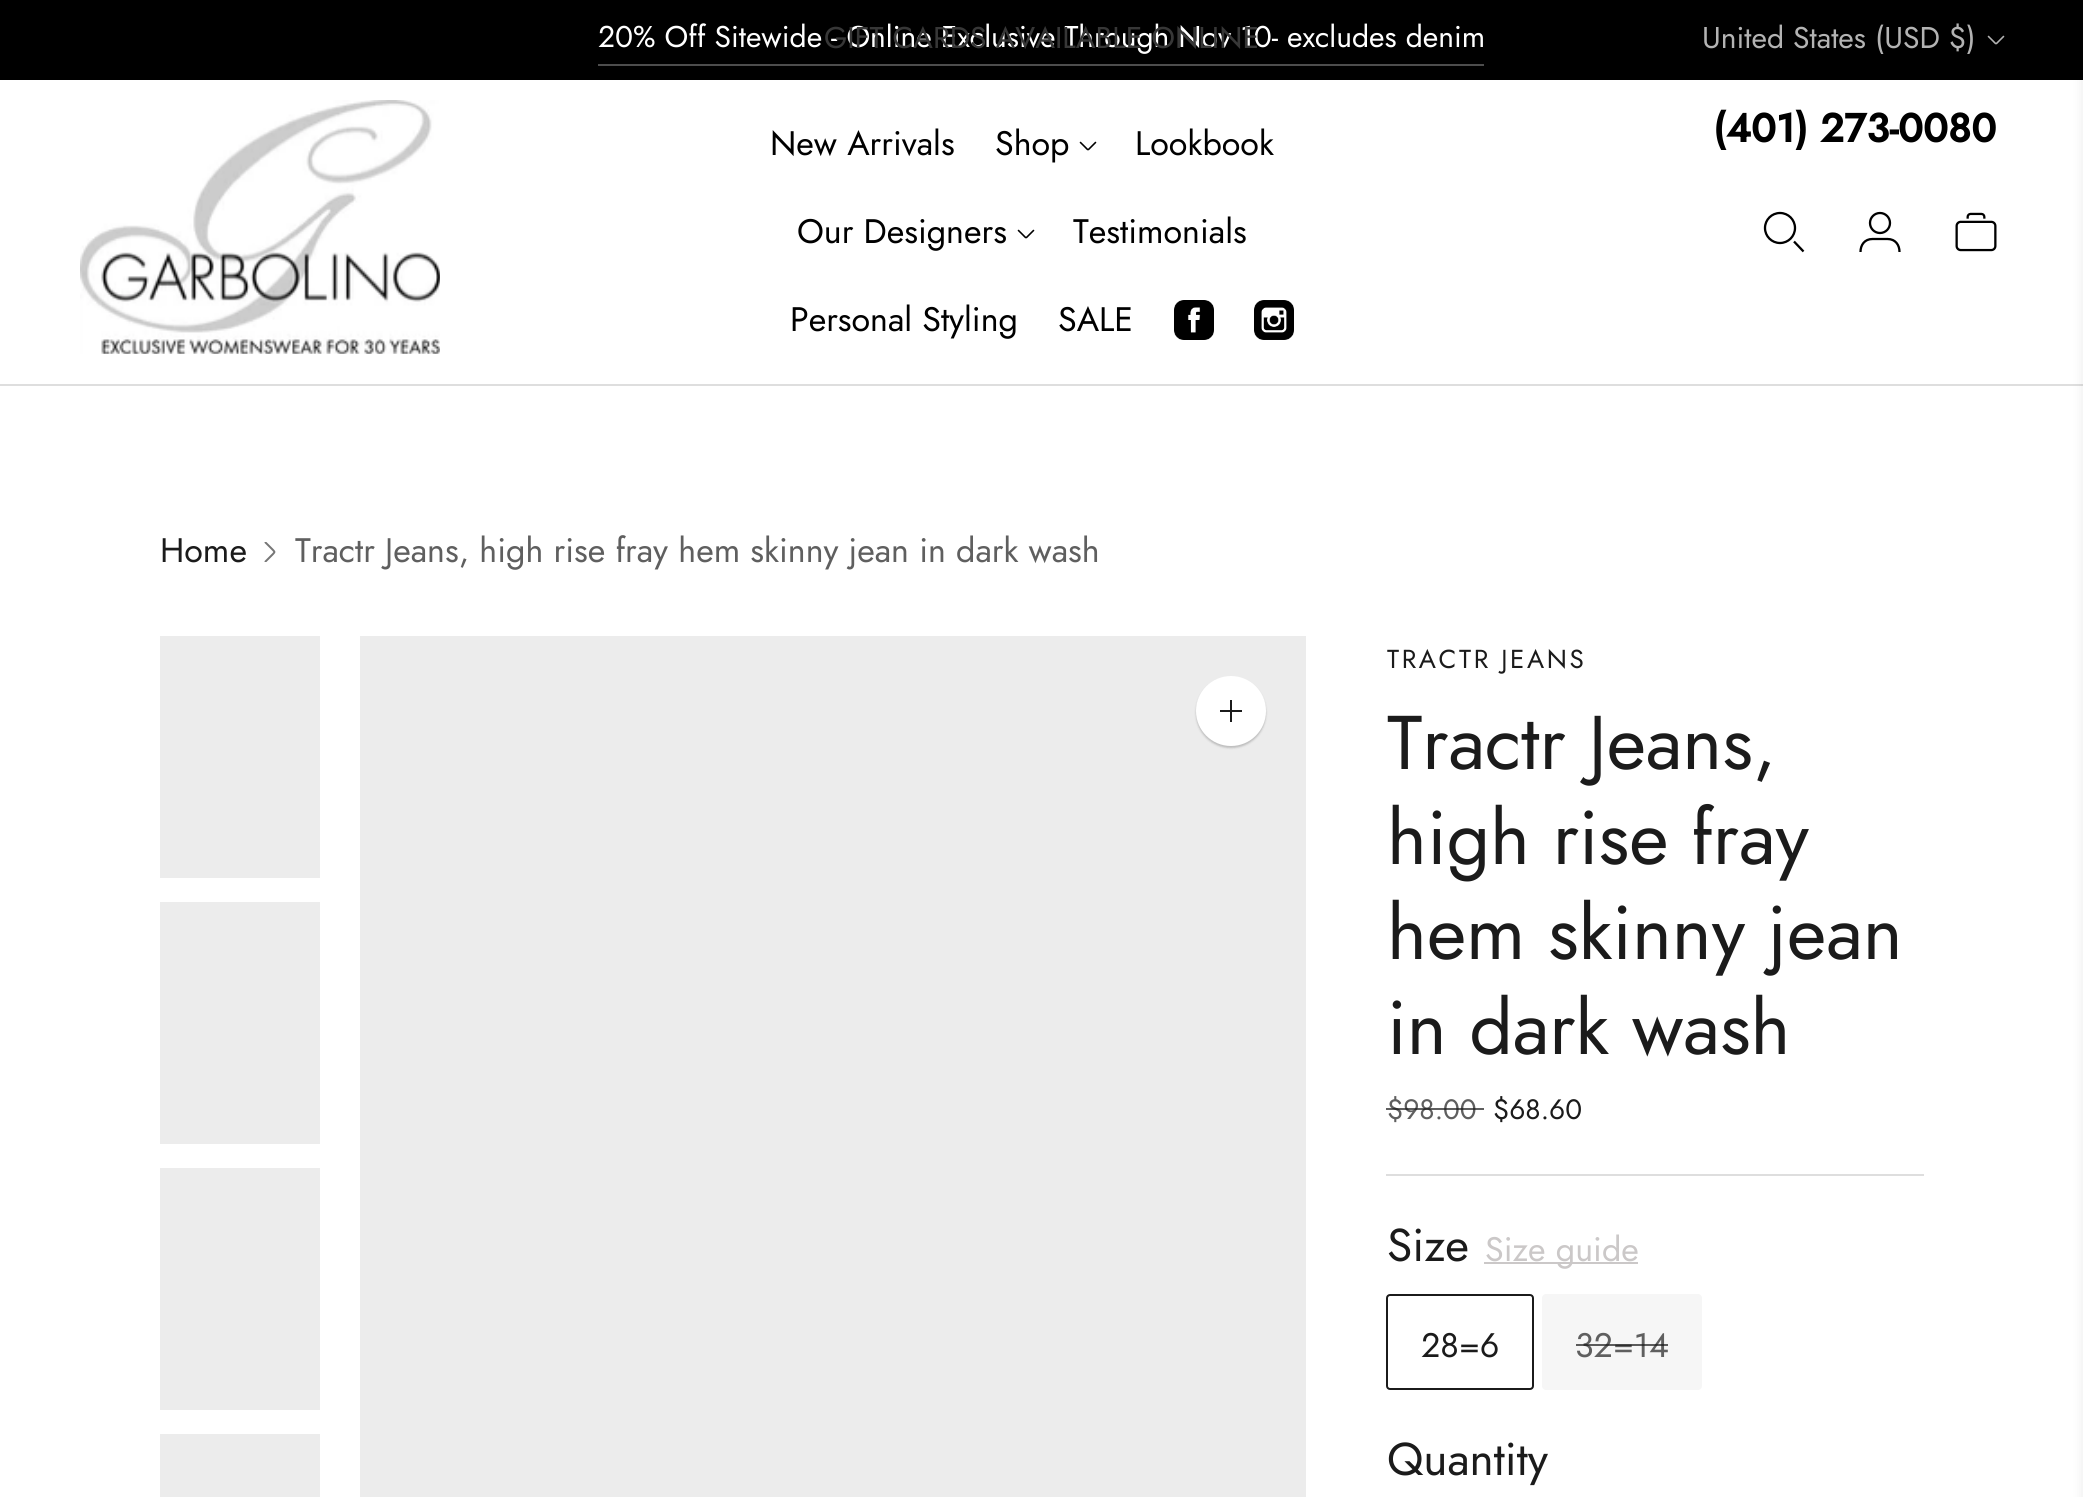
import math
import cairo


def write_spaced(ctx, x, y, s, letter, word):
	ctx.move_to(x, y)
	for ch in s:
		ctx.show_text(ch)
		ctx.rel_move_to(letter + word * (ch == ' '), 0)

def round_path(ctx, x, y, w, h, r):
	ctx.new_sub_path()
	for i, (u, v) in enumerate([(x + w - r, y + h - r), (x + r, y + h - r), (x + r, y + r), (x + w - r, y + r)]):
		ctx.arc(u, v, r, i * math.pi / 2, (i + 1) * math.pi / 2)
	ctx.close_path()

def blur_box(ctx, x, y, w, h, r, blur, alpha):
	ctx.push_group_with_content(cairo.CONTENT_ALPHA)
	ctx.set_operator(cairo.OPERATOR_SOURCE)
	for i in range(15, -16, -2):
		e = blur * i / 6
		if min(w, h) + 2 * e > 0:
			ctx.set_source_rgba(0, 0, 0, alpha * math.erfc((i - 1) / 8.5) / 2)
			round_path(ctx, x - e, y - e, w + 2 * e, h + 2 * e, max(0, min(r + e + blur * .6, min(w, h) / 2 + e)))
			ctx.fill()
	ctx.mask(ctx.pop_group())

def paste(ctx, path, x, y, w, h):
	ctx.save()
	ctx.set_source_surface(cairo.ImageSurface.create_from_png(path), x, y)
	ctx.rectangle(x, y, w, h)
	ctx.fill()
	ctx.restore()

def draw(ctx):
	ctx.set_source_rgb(1, 1, 1)
	ctx.paint()
	ctx.set_source_rgb(0, 0, 0)
	ctx.rectangle(0, 0, 2083, 80)
	ctx.fill()
	ctx.select_font_face('Jost')
	ctx.set_font_size(30)
	ctx.set_source_rgb(1, 1, 1)
	ctx.move_to(598, 47)
	ctx.show_text('20% Off Sitewide - Online Exclusive Through Nov 10- excludes denim')
	ctx.set_source_rgb(0.302, 0.302, 0.302)
	ctx.rectangle(598, 64, 886, 2)
	ctx.fill()
	ctx.set_source_rgb(0.216, 0.216, 0.216)
	ctx.move_to(824, 48)
	ctx.show_text('GIFT CARDS AVAILABLE ONLINE')
	ctx.set_source_rgb(0.702, 0.702, 0.702)
	ctx.move_to(1702, 48)
	ctx.show_text('United States (USD $)')
	ctx.new_path()
	ctx.move_to(1988.5, 36.5)
	ctx.line_to(1995.5, 43.5)
	ctx.curve_to(1996, 43.5, 1996, 43.5, 1996.5, 43.5)
	ctx.line_to(2003.5, 36.5)
	ctx.set_line_width(1.6)
	ctx.set_line_cap(cairo.LINE_CAP_ROUND)
	ctx.set_line_join(cairo.LINE_JOIN_ROUND)
	ctx.stroke()
	ctx.set_source_rgb(0.871, 0.871, 0.871)
	ctx.rectangle(0, 384, 2083, 2)
	ctx.fill()
	paste(ctx, 'media/1.png', 80, 100, 360, 254)
	ctx.set_font_size(34)
	ctx.set_source_rgb(0, 0, 0)
	ctx.move_to(770, 155)
	ctx.show_text('New Arrivals')
	ctx.move_to(995, 155)
	ctx.show_text('Shop')
	ctx.new_path()
	ctx.move_to(1080.5, 142.5)
	ctx.line_to(1087.5, 149.5)
	ctx.curve_to(1088, 149.5, 1088, 149.5, 1088.5, 149.5)
	ctx.line_to(1095.5, 142.5)
	ctx.stroke()
	ctx.move_to(1135, 155)
	ctx.show_text('Lookbook')
	ctx.move_to(797, 243)
	ctx.show_text('Our Designers')
	ctx.new_path()
	ctx.move_to(1018.5, 230.5)
	ctx.line_to(1025.5, 237.5)
	ctx.curve_to(1026, 237.5, 1026, 237.5, 1026.5, 237.5)
	ctx.line_to(1033.5, 230.5)
	ctx.stroke()
	for x, y, s in [
		(1073, 243, 'Testimonials'),
		(790, 331, 'Personal Styling'),
		(1058, 331, 'SALE'),
	]:
		ctx.move_to(x, y)
		ctx.show_text(s)
	paste(ctx, 'media/2.png', 1174, 300, 40, 40)
	paste(ctx, 'media/3.png', 1254, 300, 40, 40)
	ctx.select_font_face('Jost', cairo.FONT_SLANT_NORMAL, cairo.FONT_WEIGHT_BOLD)
	ctx.set_font_size(40)
	ctx.move_to(1713, 142)
	ctx.show_text('(401) 273-0080')
	ctx.new_path()
	ctx.arc(1780, 228, 15, 0, 2 * math.pi)
	ctx.set_line_width(2.3)
	ctx.set_line_cap(cairo.LINE_CAP_BUTT)
	ctx.set_line_join(cairo.LINE_JOIN_MITER)
	ctx.stroke()
	ctx.new_path()
	ctx.move_to(1794, 241.5)
	ctx.line_to(1803.5, 251.5)
	ctx.stroke()
	ctx.arc(1880, 223, 10, 0, 2 * math.pi)
	ctx.stroke()
	ctx.new_path()
	ctx.move_to(1860.5, 252)
	ctx.curve_to(1860.5, 245, 1864.5, 239, 1872.5, 239)
	ctx.line_to(1887.5, 239)
	ctx.curve_to(1895.5, 239, 1899.5, 245, 1899.5, 252)
	ctx.stroke()
	paste(ctx, 'media/4.png', 1955, 212, 42, 40)
	ctx.select_font_face('Jost')
	ctx.set_font_size(34)
	ctx.set_source_rgb(0.106, 0.106, 0.106)
	ctx.move_to(160, 562)
	ctx.show_text('Home')
	ctx.save()
	ctx.rectangle(260, 542, 20, 20)
	ctx.clip()
	ctx.new_path()
	ctx.move_to(265.5, 542.5)
	ctx.line_to(273, 550)
	ctx.curve_to(275, 552.5, 275, 551.5, 273, 554)
	ctx.line_to(265.5, 561.5)
	ctx.set_source_rgb(0.463, 0.463, 0.463)
	ctx.set_line_width(2)
	ctx.set_line_cap(cairo.LINE_CAP_ROUND)
	ctx.set_line_join(cairo.LINE_JOIN_ROUND)
	ctx.stroke()
	ctx.restore()
	ctx.set_source_rgb(0.373, 0.373, 0.373)
	ctx.move_to(295, 562)
	ctx.show_text('Tractr Jeans, high rise fray hem skinny jean in dark wash')
	ctx.set_source_rgb(0.922, 0.922, 0.922)
	ctx.rectangle(160, 636, 160, 242)
	ctx.rectangle(160, 902, 160, 242)
	ctx.rectangle(160, 1168, 160, 242)
	ctx.rectangle(160, 1434, 160, 63)
	ctx.rectangle(360, 636, 946, 861)
	ctx.fill()
	ctx.set_source_rgb(0, 0, 0)
	blur_box(ctx, 1196, 678, 70, 70, 35, 1, 0.2)
	ctx.set_source_rgb(1, 1, 1)
	ctx.arc(1231, 711, 35, 0, 2 * math.pi)
	ctx.fill()
	ctx.new_path()
	ctx.move_to(1231, 700)
	ctx.line_to(1231, 722)
	ctx.move_to(1220, 711)
	ctx.line_to(1242, 711)
	ctx.set_source_rgb(0.106, 0.106, 0.106)
	ctx.set_line_width(2)
	ctx.stroke()
	ctx.set_font_size(26)
	write_spaced(ctx, 1387, 668, 'TRACTR JEANS', 2.6, 0)
	ctx.set_font_size(76)
	for x, y, s in [
		(1387, 769, 'Tractr Jeans,'),
		(1387, 864, 'high rise fray'),
		(1387, 959, 'hem skinny jean'),
		(1387, 1054, 'in dark wash'),
	]:
		ctx.move_to(x, y)
		ctx.show_text(s)
	ctx.set_font_size(28)
	ctx.set_source_rgb(0.373, 0.373, 0.373)
	ctx.move_to(1387, 1119)
	ctx.show_text('$98.00')
	ctx.set_source_rgba(0.106, 0.106, 0.106, 0.7)
	ctx.rectangle(1386, 1108, 98, 2)
	ctx.fill()
	ctx.set_source_rgb(0.106, 0.106, 0.106)
	ctx.move_to(1493, 1119)
	ctx.show_text('$68.60')
	ctx.set_source_rgb(0.871, 0.871, 0.871)
	ctx.rectangle(1386, 1174, 538, 2)
	ctx.fill()
	ctx.set_font_size(46)
	ctx.set_source_rgb(0.106, 0.106, 0.106)
	ctx.move_to(1387, 1261)
	ctx.show_text('Size')
	ctx.set_source_rgb(0.796, 0.784, 0.784)
	ctx.rectangle(1484, 1262, 154, 2)
	ctx.fill()
	ctx.set_font_size(34)
	ctx.move_to(1485, 1261)
	ctx.show_text('Size guide')
	round_path(ctx, 1387, 1295, 146, 94, 3)
	ctx.set_source_rgb(0.106, 0.106, 0.106)
	ctx.stroke()
	ctx.move_to(1421, 1357)
	ctx.show_text('28=6')
	ctx.set_source_rgb(0.961, 0.961, 0.961)
	round_path(ctx, 1542, 1294, 160, 96, 4)
	ctx.fill()
	ctx.set_source_rgb(0.373, 0.373, 0.373)
	ctx.move_to(1575, 1357)
	ctx.show_text('32=14')
	ctx.set_source_rgba(0.106, 0.106, 0.106, 0.7)
	ctx.rectangle(1576, 1344, 92, 2)
	ctx.fill()
	ctx.set_font_size(46)
	ctx.set_source_rgb(0.106, 0.106, 0.106)
	ctx.move_to(1387, 1475)
	ctx.show_text('Quantity')
	ctx.set_source_rgb(0, 0, 0)
	blur_box(ctx, 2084, 8, 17, 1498, 0, 6, 0.1)


surface = cairo.ImageSurface(cairo.FORMAT_RGB24, 2083, 1497)
ctx = cairo.Context(surface)
options = cairo.FontOptions()
options.set_hint_metrics(cairo.HINT_METRICS_OFF)
options.set_hint_style(cairo.HINT_STYLE_NONE)
ctx.set_font_options(options)
ctx.set_miter_limit(4)
draw(ctx)
surface.write_to_png('image.png')
